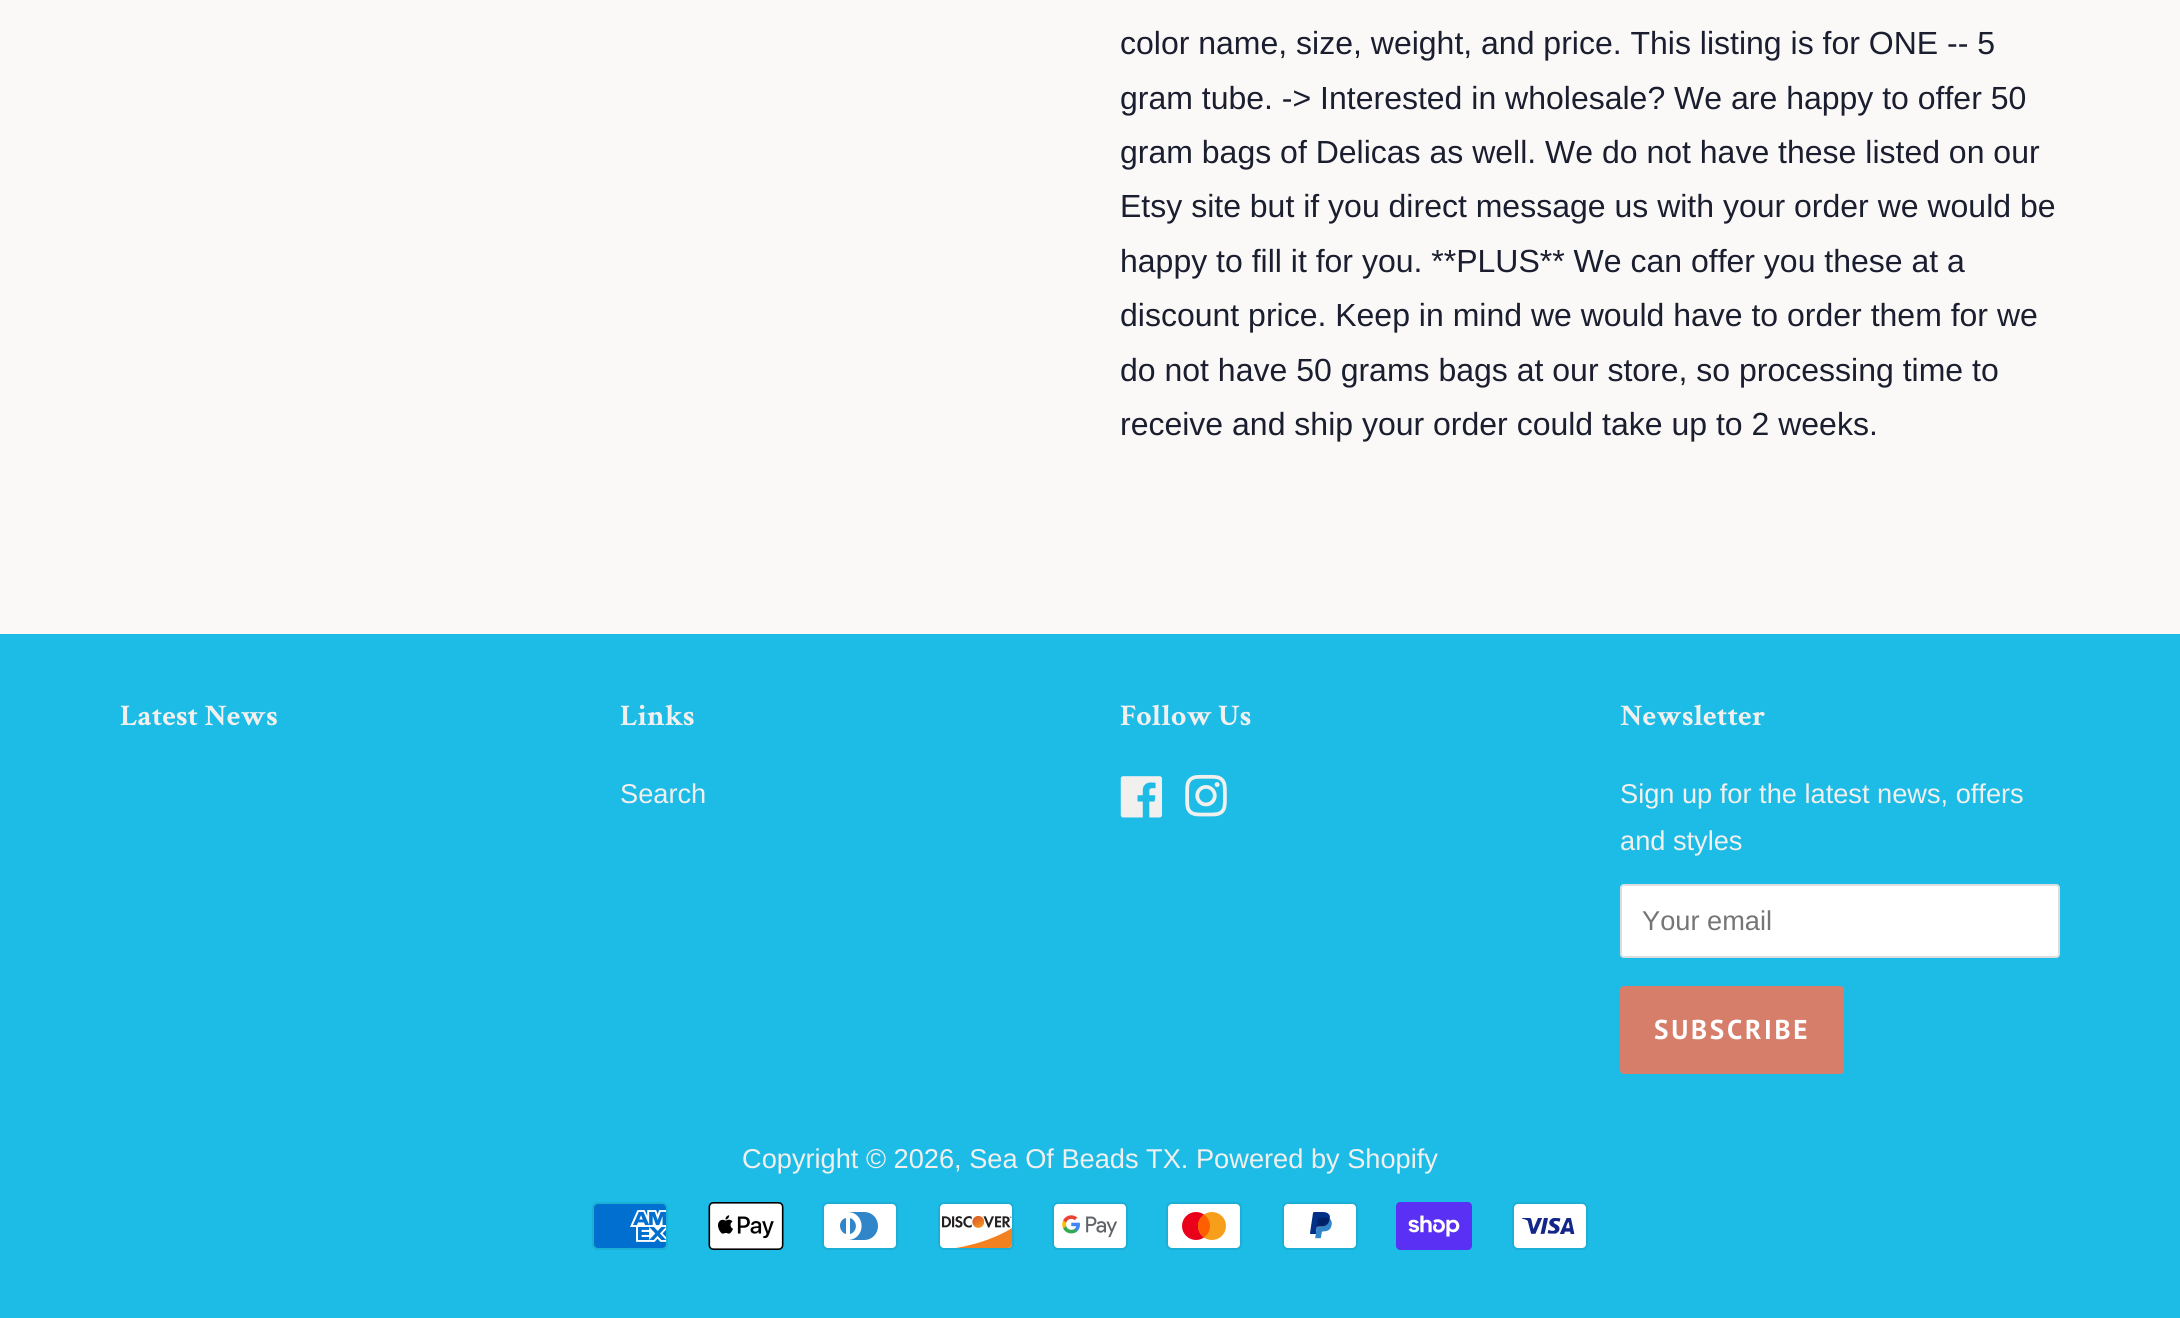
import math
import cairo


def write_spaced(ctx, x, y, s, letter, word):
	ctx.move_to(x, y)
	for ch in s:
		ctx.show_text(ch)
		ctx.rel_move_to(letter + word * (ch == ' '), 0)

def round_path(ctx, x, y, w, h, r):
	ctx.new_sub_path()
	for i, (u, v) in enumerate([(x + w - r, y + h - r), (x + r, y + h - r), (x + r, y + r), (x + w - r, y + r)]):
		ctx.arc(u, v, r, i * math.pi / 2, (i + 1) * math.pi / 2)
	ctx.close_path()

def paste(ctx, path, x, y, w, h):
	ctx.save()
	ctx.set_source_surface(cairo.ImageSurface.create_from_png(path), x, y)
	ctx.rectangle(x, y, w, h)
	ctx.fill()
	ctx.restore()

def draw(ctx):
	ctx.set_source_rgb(0.98, 0.976, 0.969)
	ctx.paint()
	ctx.select_font_face('Liberation Sans')
	ctx.set_font_size(32)
	ctx.set_source_rgb(0.106, 0.118, 0.184)
	for x, y, s in [
		(1120, 54, 'color name, size, weight, and price. This listing is for ONE -- 5'),
		(1120, 109, 'gram tube. -> Interested in wholesale? We are happy to offer 50'),
		(1120, 163, 'gram bags of Delicas as well. We do not have these listed on our'),
		(1120, 217, 'Etsy site but if you direct message us with your order we would be'),
		(1120, 272, 'happy to fill it for you. **PLUS** We can offer you these at a'),
		(1120, 326, 'discount price. Keep in mind we would have to order them for we'),
		(1120, 381, 'do not have 50 grams bags at our store, so processing time to'),
		(1120, 435, 'receive and ship your order could take up to 2 weeks.'),
	]:
		ctx.move_to(x, y)
		ctx.show_text(s)
	ctx.set_source_rgb(0.114, 0.737, 0.902)
	ctx.rectangle(0, 634, 2180, 684)
	ctx.fill()
	ctx.select_font_face('Crimson Text', cairo.FONT_SLANT_NORMAL, cairo.FONT_WEIGHT_BOLD)
	ctx.set_font_size(30)
	ctx.set_source_rgb(0.949, 0.941, 0.933)
	ctx.move_to(120, 725)
	ctx.show_text('Latest News')
	ctx.move_to(620, 725)
	ctx.show_text('Links')
	ctx.select_font_face('Liberation Sans')
	ctx.set_font_size(27.2)
	ctx.move_to(620, 803)
	ctx.show_text('Search')
	ctx.select_font_face('Crimson Text', cairo.FONT_SLANT_NORMAL, cairo.FONT_WEIGHT_BOLD)
	ctx.set_font_size(30)
	ctx.move_to(1120, 725)
	ctx.show_text('Follow Us')
	paste(ctx, 'media/1.png', 1120, 776, 43, 42)
	paste(ctx, 'media/2.png', 1185, 774, 42, 43)
	ctx.move_to(1620, 725)
	ctx.show_text('Newsletter')
	ctx.select_font_face('Liberation Sans')
	ctx.set_font_size(27.2)
	ctx.move_to(1620, 803)
	ctx.show_text('Sign up for the latest news, offers')
	ctx.move_to(1620, 850)
	ctx.show_text('and styles')
	ctx.set_source_rgb(1, 1, 1)
	round_path(ctx, 1620, 884, 440, 74, 4)
	ctx.fill()
	round_path(ctx, 1621, 885, 438, 72, 3)
	ctx.set_source_rgba(0.106, 0.118, 0.184, 0.15)
	ctx.stroke()
	ctx.set_source_rgb(0.459, 0.459, 0.459)
	ctx.move_to(1642, 930)
	ctx.show_text('Your email')
	ctx.set_source_rgb(0.843, 0.494, 0.416)
	round_path(ctx, 1620, 986, 224, 88, 4)
	ctx.fill()
	ctx.select_font_face('PT Sans', cairo.FONT_SLANT_NORMAL, cairo.FONT_WEIGHT_BOLD)
	ctx.set_source_rgb(1, 1, 1)
	write_spaced(ctx, 1654, 1039, 'SUBSCRIBE', 2.75, 0)
	ctx.select_font_face('Liberation Sans')
	ctx.set_source_rgb(0.949, 0.941, 0.933)
	ctx.move_to(742, 1168)
	ctx.show_text('Copyright © 2026, Sea Of Beads TX. Powered by Shopify')
	paste(ctx, 'media/3.png', 592, 1202, 76, 48)
	paste(ctx, 'media/4.png', 708, 1202, 76, 48)
	paste(ctx, 'media/5.png', 822, 1202, 76, 48)
	paste(ctx, 'media/6.png', 938, 1202, 76, 48)
	paste(ctx, 'media/7.png', 1052, 1202, 76, 48)
	paste(ctx, 'media/8.png', 1166, 1202, 76, 48)
	paste(ctx, 'media/9.png', 1282, 1202, 76, 48)
	paste(ctx, 'media/10.png', 1396, 1202, 76, 48)
	paste(ctx, 'media/11.png', 1512, 1202, 76, 48)


surface = cairo.ImageSurface(cairo.FORMAT_RGB24, 2180, 1318)
ctx = cairo.Context(surface)
options = cairo.FontOptions()
options.set_hint_metrics(cairo.HINT_METRICS_OFF)
options.set_hint_style(cairo.HINT_STYLE_NONE)
ctx.set_font_options(options)
ctx.set_miter_limit(4)
draw(ctx)
surface.write_to_png('image.png')
